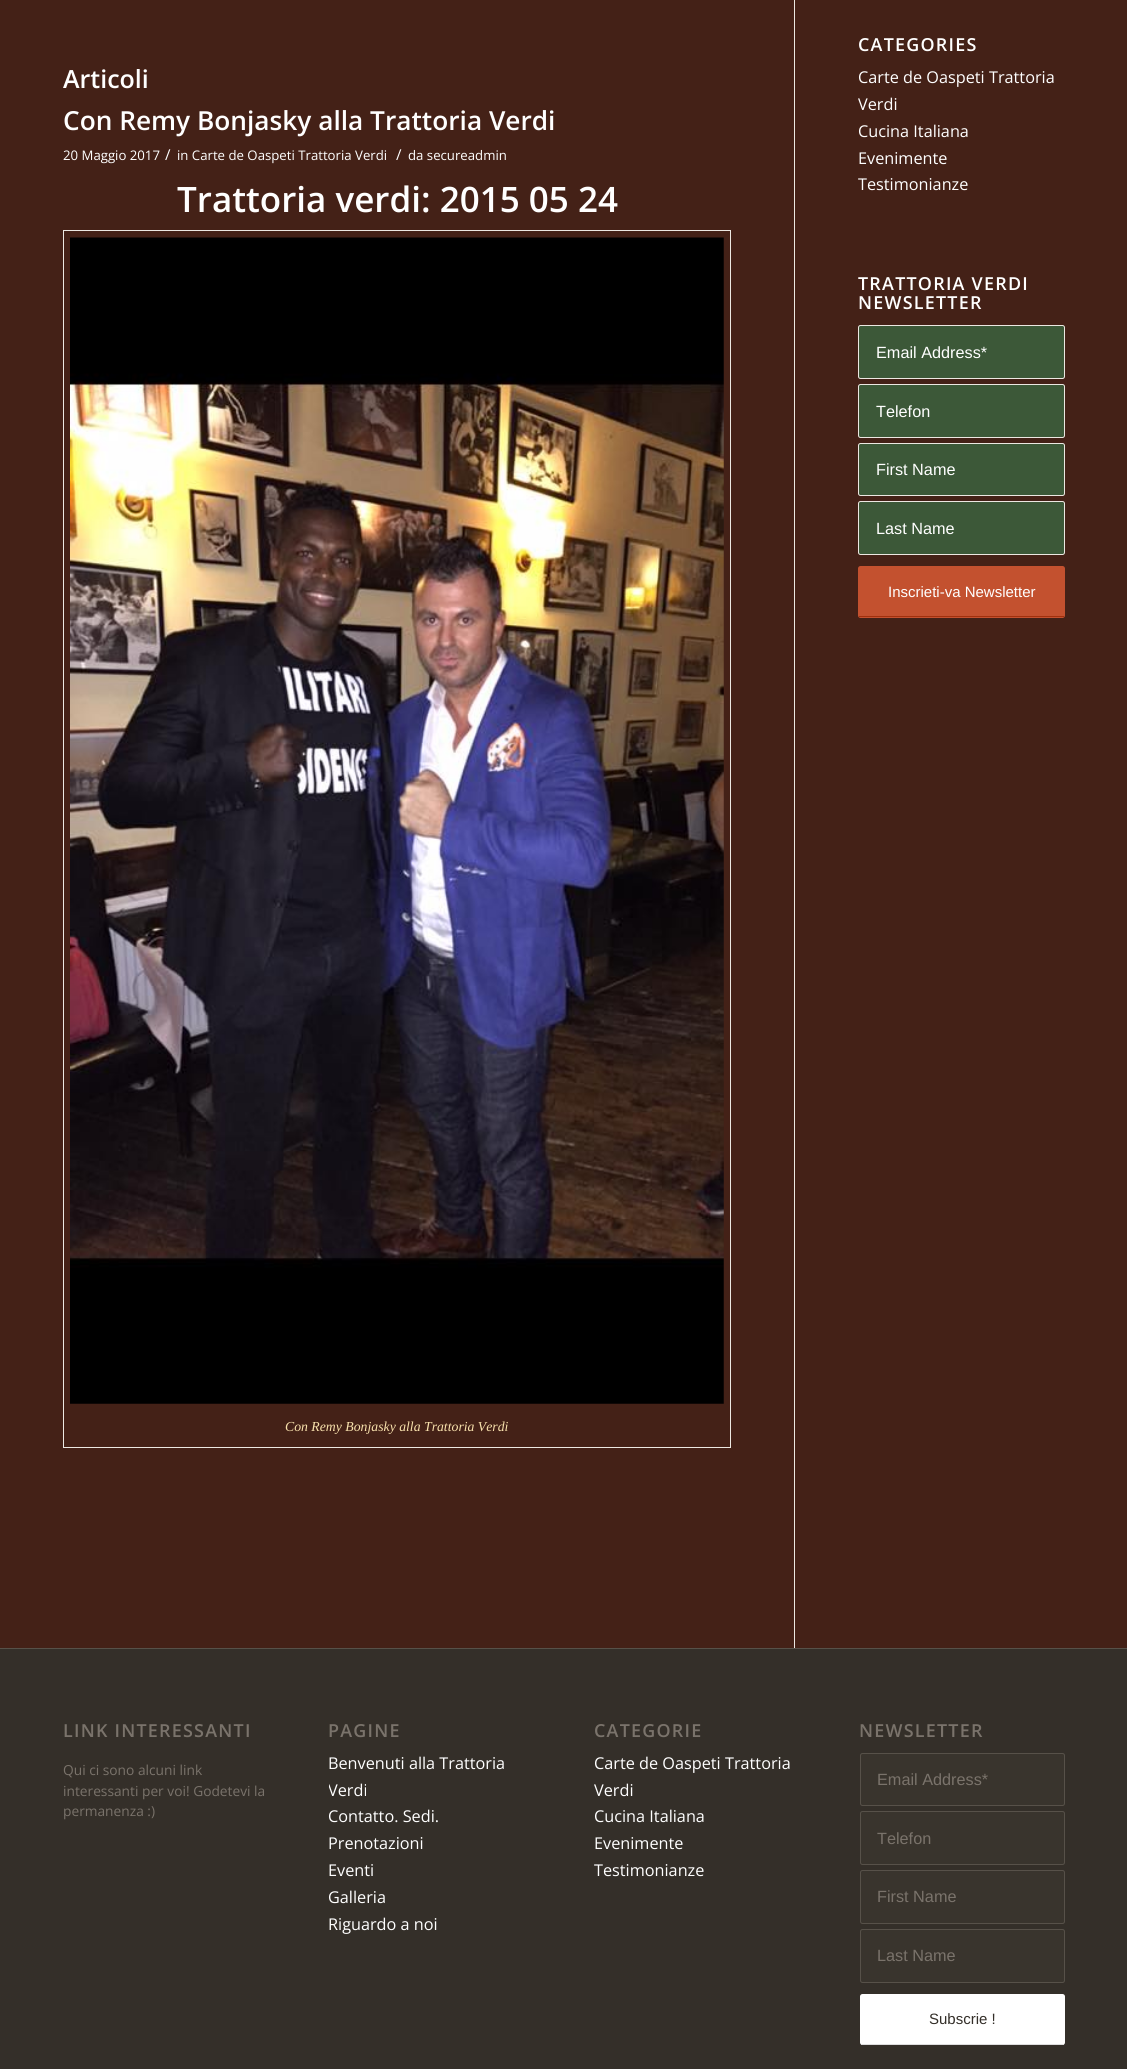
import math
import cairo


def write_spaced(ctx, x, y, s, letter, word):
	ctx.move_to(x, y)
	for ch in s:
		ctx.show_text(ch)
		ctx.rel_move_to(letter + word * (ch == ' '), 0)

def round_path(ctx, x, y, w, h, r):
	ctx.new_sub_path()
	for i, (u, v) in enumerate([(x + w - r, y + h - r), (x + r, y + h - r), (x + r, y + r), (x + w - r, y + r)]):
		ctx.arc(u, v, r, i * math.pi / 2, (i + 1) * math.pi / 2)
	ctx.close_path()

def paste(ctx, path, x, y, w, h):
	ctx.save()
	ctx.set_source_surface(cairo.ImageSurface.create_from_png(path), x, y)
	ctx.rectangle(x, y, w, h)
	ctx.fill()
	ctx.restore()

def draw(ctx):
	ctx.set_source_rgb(0.267, 0.129, 0.09)
	ctx.paint()
	ctx.set_source_rgb(0.922, 0.91, 0.886)
	ctx.rectangle(794, 0, 1, 1648)
	ctx.fill()
	ctx.select_font_face('Open Sans SemiBold')
	ctx.set_font_size(25)
	ctx.set_source_rgb(1, 1, 1)
	ctx.move_to(63, 88)
	ctx.show_text('Articoli')
	ctx.set_font_size(26.25)
	ctx.move_to(63, 130)
	ctx.show_text('Con Remy Bonjasky alla Trattoria Verdi')
	ctx.select_font_face('Open Sans')
	ctx.set_font_size(13.2)
	ctx.move_to(63, 160)
	ctx.show_text('20 Maggio 2017')
	ctx.set_font_size(15)
	ctx.move_to(165, 160)
	ctx.show_text('/')
	ctx.set_font_size(13.2)
	ctx.move_to(177, 160)
	ctx.show_text('in Carte de Oaspeti Trattoria Verdi')
	ctx.set_font_size(15)
	ctx.move_to(396, 160)
	ctx.show_text('/')
	ctx.set_font_size(13.2)
	ctx.move_to(408, 160)
	ctx.show_text('da secureadmin')
	ctx.select_font_face('Open Sans SemiBold')
	ctx.set_font_size(35)
	ctx.move_to(177, 212)
	ctx.show_text('Trattoria verdi: 2015 05 24')
	ctx.rectangle(63.5, 230.5, 667, 1217)
	ctx.set_source_rgb(0.922, 0.91, 0.886)
	ctx.set_line_width(1)
	ctx.stroke()
	paste(ctx, 'media/1.png', 70, 237, 654, 1167)
	ctx.select_font_face('Liberation Serif', cairo.FONT_SLANT_ITALIC)
	ctx.set_font_size(13.75)
	ctx.set_source_rgb(0.969, 0.882, 0.675)
	ctx.move_to(285, 1431)
	ctx.show_text('Con Remy Bonjasky alla Trattoria Verdi')
	ctx.select_font_face('Open Sans SemiBold')
	ctx.set_font_size(17.9)
	ctx.set_source_rgb(1, 1, 1)
	write_spaced(ctx, 858, 51, 'CATEGORIES', 1.25, 0)
	ctx.select_font_face('Open Sans')
	ctx.set_font_size(16.25)
	for x, y, s in [
		(858, 83, 'Carte de Oaspeti Trattoria'),
		(858, 110, 'Verdi'),
		(858, 137, 'Cucina Italiana'),
		(858, 164, 'Evenimente'),
		(858, 190, 'Testimonianze'),
	]:
		ctx.move_to(x, y)
		ctx.show_text(s)
	ctx.select_font_face('Open Sans SemiBold')
	ctx.set_font_size(17.9)
	write_spaced(ctx, 858, 290, 'TRATTORIA VERDI', 1.25, 0)
	write_spaced(ctx, 858, 309, 'NEWSLETTER', 1.25, 0)
	ctx.set_source_rgb(0.235, 0.345, 0.22)
	round_path(ctx, 858.5, 325.5, 206, 53, 2)
	ctx.fill_preserve()
	ctx.set_source_rgb(0.922, 0.91, 0.886)
	ctx.stroke()
	ctx.select_font_face('Liberation Sans')
	ctx.set_font_size(16.25)
	ctx.set_source_rgb(1, 1, 1)
	ctx.move_to(876, 358)
	ctx.show_text('Email Address*')
	ctx.set_source_rgb(0.235, 0.345, 0.22)
	round_path(ctx, 858.5, 384.5, 206, 53, 2)
	ctx.fill_preserve()
	ctx.set_source_rgb(0.922, 0.91, 0.886)
	ctx.stroke()
	ctx.set_source_rgb(1, 1, 1)
	ctx.move_to(876, 417)
	ctx.show_text('Telefon')
	ctx.set_source_rgb(0.235, 0.345, 0.22)
	round_path(ctx, 858.5, 443.5, 206, 52, 2)
	ctx.fill_preserve()
	ctx.set_source_rgb(0.922, 0.91, 0.886)
	ctx.stroke()
	ctx.set_source_rgb(1, 1, 1)
	ctx.move_to(876, 475)
	ctx.show_text('First Name')
	ctx.set_source_rgb(0.235, 0.345, 0.22)
	round_path(ctx, 858.5, 501.5, 206, 53, 2)
	ctx.fill_preserve()
	ctx.set_source_rgb(0.922, 0.91, 0.886)
	ctx.stroke()
	ctx.set_source_rgb(1, 1, 1)
	ctx.move_to(876, 534)
	ctx.show_text('Last Name')
	ctx.set_source_rgb(0.765, 0.318, 0.184)
	round_path(ctx, 858, 566, 207, 52, 2.5)
	ctx.fill()
	ctx.set_source_rgb(0.631, 0.188, 0.051)
	ctx.rectangle(859, 616, 205, 1)
	ctx.fill()
	ctx.set_font_size(15)
	ctx.set_source_rgb(1, 1, 1)
	ctx.move_to(888, 597)
	ctx.show_text('Inscrieti-va Newsletter')
	ctx.set_source_rgb(0.204, 0.184, 0.161)
	ctx.rectangle(0, 1649, 1127, 420)
	ctx.fill()
	ctx.set_source_rgb(0.341, 0.318, 0.286)
	ctx.rectangle(0, 1648, 1127, 1)
	ctx.fill()
	ctx.select_font_face('Open Sans SemiBold')
	ctx.set_font_size(17.9)
	ctx.set_source_rgb(0.478, 0.451, 0.42)
	write_spaced(ctx, 63, 1737, 'LINK INTERESSANTI', 1.25, 0)
	ctx.select_font_face('Open Sans')
	ctx.set_font_size(13.75)
	for x, y, s in [
		(63, 1775, 'Qui ci sono alcuni link'),
		(63, 1796, 'interessanti per voi! Godetevi la'),
		(63, 1816, 'permanenza :)'),
	]:
		ctx.move_to(x, y)
		ctx.show_text(s)
	ctx.select_font_face('Open Sans SemiBold')
	ctx.set_font_size(17.9)
	write_spaced(ctx, 328, 1737, 'PAGINE', 1.25, 0)
	ctx.select_font_face('Open Sans')
	ctx.set_font_size(16.25)
	ctx.set_source_rgb(1, 1, 1)
	ctx.move_to(328, 1769)
	ctx.show_text('Benvenuti alla Trattoria')
	ctx.save()
	ctx.rectangle(329, 1705, 205, 233)
	ctx.clip()
	ctx.move_to(328, 1796)
	ctx.show_text('Verdi')
	ctx.restore()
	for x, y, s in [
		(328, 1822, 'Contatto. Sedi.'),
		(328, 1849, 'Prenotazioni'),
		(328, 1876, 'Eventi'),
		(328, 1903, 'Galleria'),
		(328, 1930, 'Riguardo a noi'),
	]:
		ctx.move_to(x, y)
		ctx.show_text(s)
	ctx.select_font_face('Open Sans SemiBold')
	ctx.set_font_size(17.9)
	ctx.set_source_rgb(0.478, 0.451, 0.42)
	write_spaced(ctx, 594, 1737, 'CATEGORIE', 1.25, 0)
	ctx.select_font_face('Open Sans')
	ctx.set_font_size(16.25)
	ctx.set_source_rgb(1, 1, 1)
	for x, y, s in [
		(594, 1769, 'Carte de Oaspeti Trattoria'),
		(594, 1796, 'Verdi'),
		(594, 1822, 'Cucina Italiana'),
		(594, 1849, 'Evenimente'),
		(594, 1876, 'Testimonianze'),
	]:
		ctx.move_to(x, y)
		ctx.show_text(s)
	ctx.select_font_face('Open Sans SemiBold')
	ctx.set_font_size(17.9)
	ctx.set_source_rgb(0.478, 0.451, 0.42)
	write_spaced(ctx, 859, 1737, 'NEWSLETTER', 1.25, 0)
	ctx.set_source_rgb(0.224, 0.204, 0.176)
	round_path(ctx, 860.5, 1753.5, 204, 52, 2)
	ctx.fill_preserve()
	ctx.set_source_rgb(0.341, 0.318, 0.286)
	ctx.stroke()
	ctx.select_font_face('Liberation Sans')
	ctx.set_font_size(16.25)
	ctx.set_source_rgb(0.478, 0.451, 0.42)
	ctx.move_to(877, 1785)
	ctx.show_text('Email Address*')
	ctx.set_source_rgb(0.224, 0.204, 0.176)
	round_path(ctx, 860.5, 1811.5, 204, 53, 2)
	ctx.fill_preserve()
	ctx.set_source_rgb(0.341, 0.318, 0.286)
	ctx.stroke()
	ctx.set_source_rgb(0.478, 0.451, 0.42)
	ctx.move_to(877, 1844)
	ctx.show_text('Telefon')
	ctx.set_source_rgb(0.224, 0.204, 0.176)
	round_path(ctx, 860.5, 1870.5, 204, 53, 2)
	ctx.fill_preserve()
	ctx.set_source_rgb(0.341, 0.318, 0.286)
	ctx.stroke()
	ctx.set_source_rgb(0.478, 0.451, 0.42)
	ctx.move_to(877, 1902)
	ctx.show_text('First Name')
	ctx.set_source_rgb(0.224, 0.204, 0.176)
	round_path(ctx, 860.5, 1929.5, 204, 53, 2)
	ctx.fill_preserve()
	ctx.set_source_rgb(0.341, 0.318, 0.286)
	ctx.stroke()
	ctx.set_source_rgb(0.478, 0.451, 0.42)
	ctx.move_to(877, 1961)
	ctx.show_text('Last Name')
	ctx.set_source_rgb(1, 1, 1)
	round_path(ctx, 860, 1994, 205, 51, 2.5)
	ctx.fill()
	ctx.set_source_rgb(0.867, 0.867, 0.867)
	ctx.rectangle(861, 2044, 203, 1)
	ctx.fill()
	ctx.set_font_size(15)
	ctx.set_source_rgb(0.204, 0.184, 0.161)
	ctx.move_to(929, 2024)
	ctx.show_text('Subscrie !')


surface = cairo.ImageSurface(cairo.FORMAT_RGB24, 1127, 2069)
ctx = cairo.Context(surface)
options = cairo.FontOptions()
options.set_hint_metrics(cairo.HINT_METRICS_OFF)
options.set_hint_style(cairo.HINT_STYLE_NONE)
ctx.set_font_options(options)
ctx.set_miter_limit(4)
draw(ctx)
surface.write_to_png('image.png')
